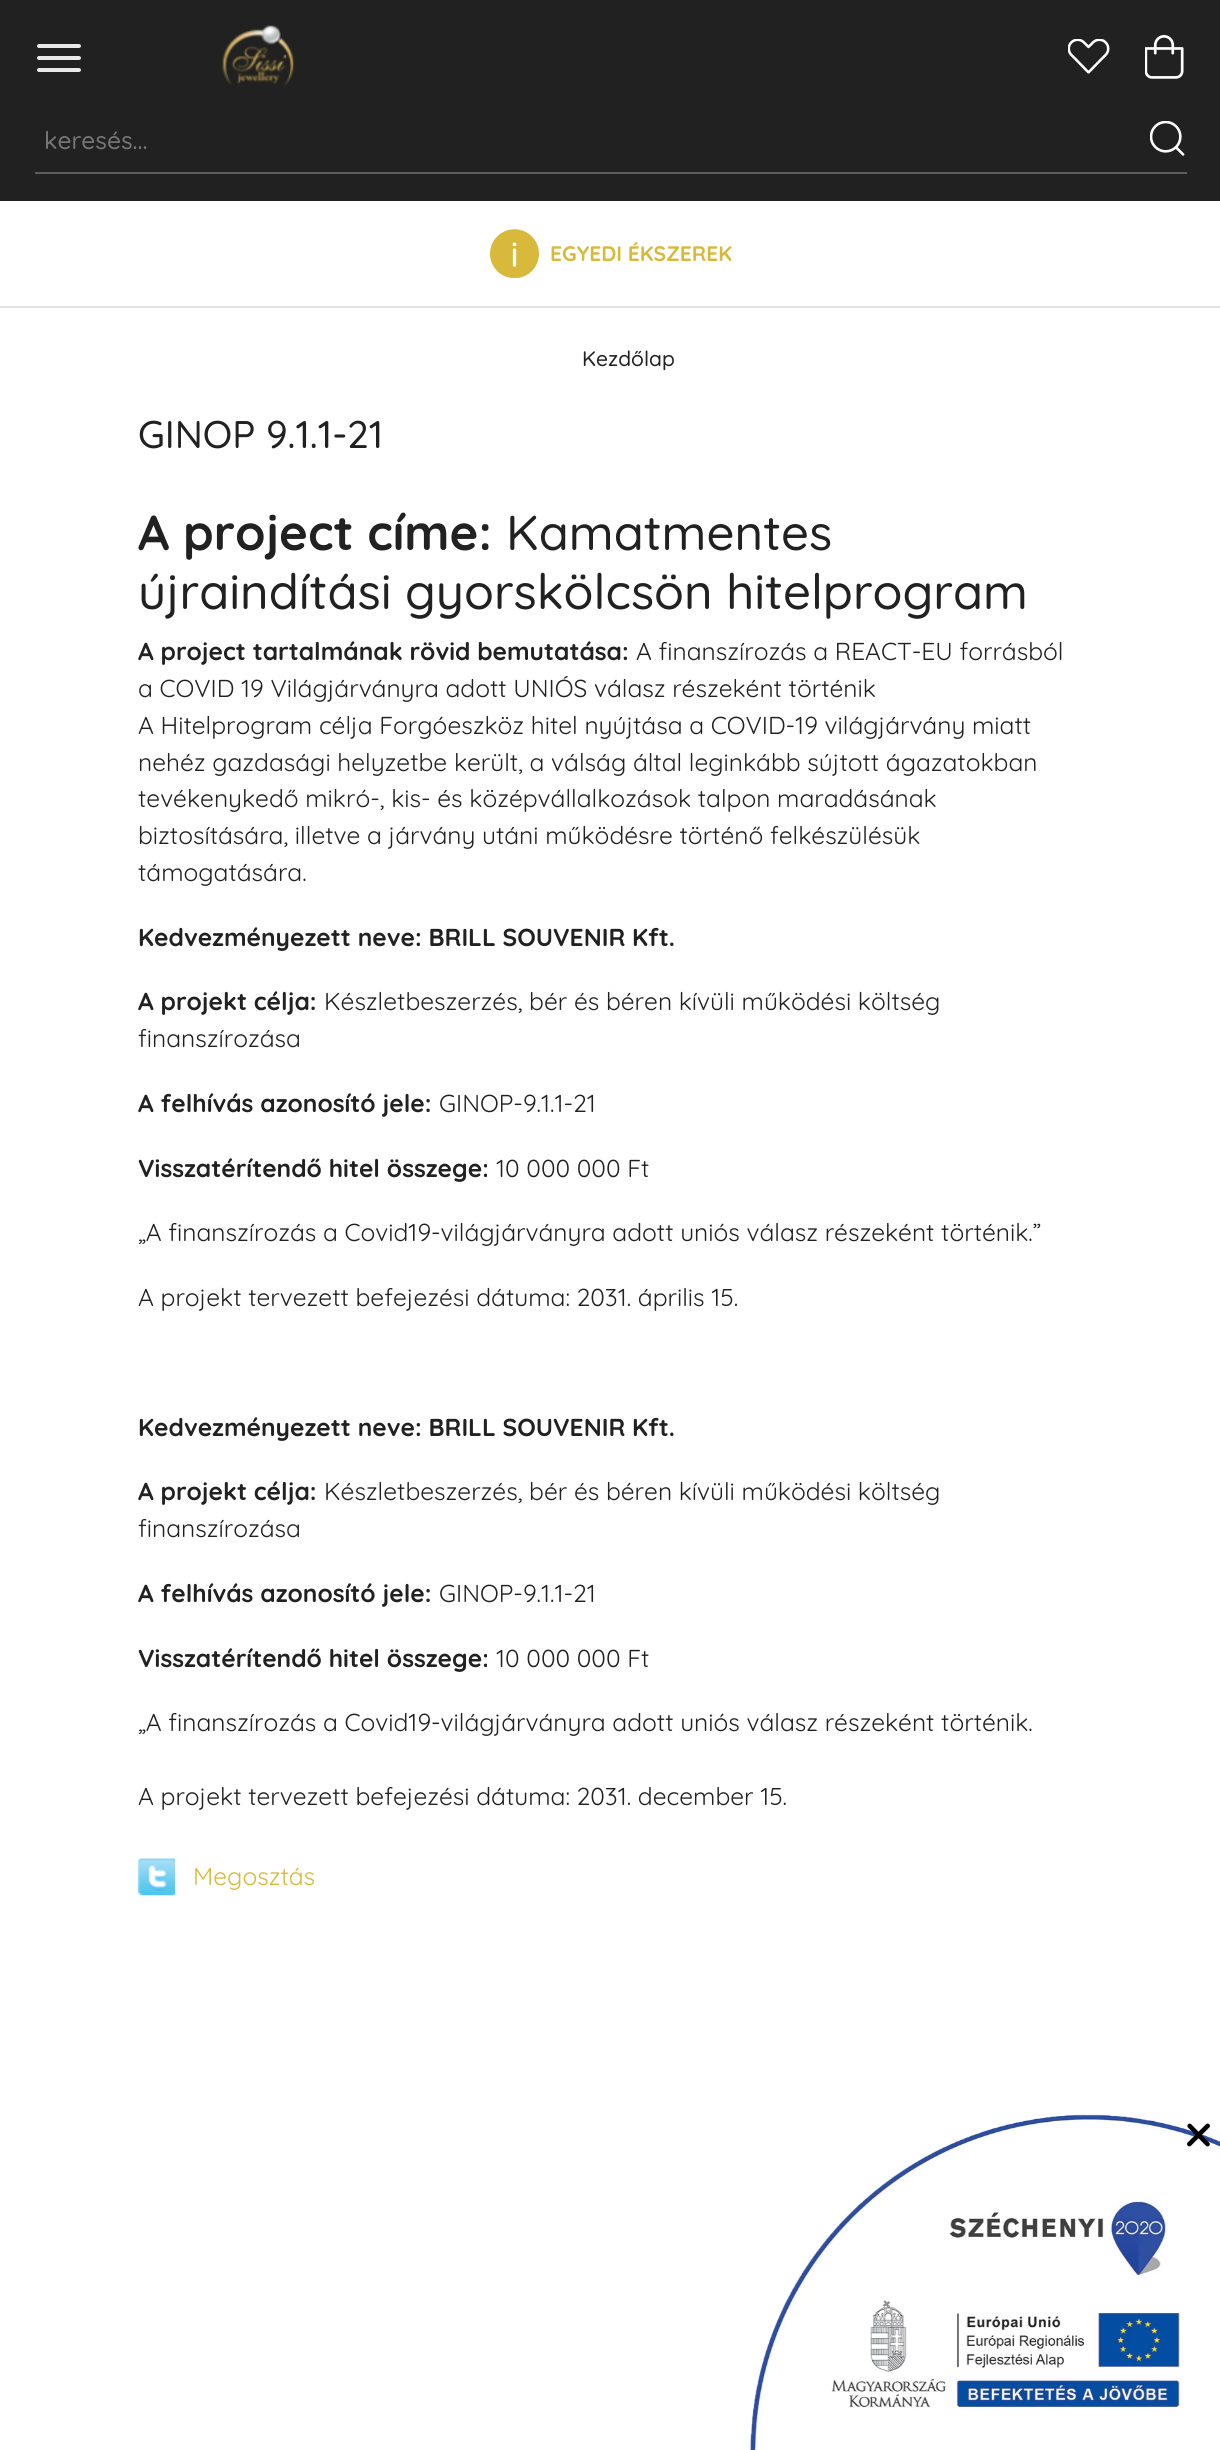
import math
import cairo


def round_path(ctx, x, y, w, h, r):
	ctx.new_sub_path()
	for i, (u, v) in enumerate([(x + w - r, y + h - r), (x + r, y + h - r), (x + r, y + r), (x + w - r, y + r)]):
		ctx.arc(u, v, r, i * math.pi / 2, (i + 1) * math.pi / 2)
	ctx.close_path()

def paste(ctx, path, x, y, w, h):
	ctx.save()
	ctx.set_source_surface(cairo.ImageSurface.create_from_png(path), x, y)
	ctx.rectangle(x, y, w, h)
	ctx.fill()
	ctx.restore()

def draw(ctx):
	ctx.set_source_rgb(1, 1, 1)
	ctx.paint()
	ctx.set_source_rgb(0.129, 0.129, 0.129)
	ctx.rectangle(0, 0, 1220, 201)
	ctx.fill()
	ctx.set_source_rgb(0.914, 0.914, 0.914)
	round_path(ctx, 37, 44, 44, 4, 2)
	ctx.fill()
	round_path(ctx, 37, 56, 44, 4, 2)
	ctx.fill()
	round_path(ctx, 37, 68, 44, 4, 2)
	ctx.fill()
	paste(ctx, 'media/1.png', 222, 25, 73, 61)
	paste(ctx, 'media/2.png', 1068, 39, 42, 35)
	paste(ctx, 'media/3.png', 1145, 35, 39, 44)
	ctx.set_source_rgb(0.361, 0.361, 0.361)
	ctx.rectangle(35, 172, 1152, 2)
	ctx.fill()
	ctx.select_font_face('Quicksand Medium')
	ctx.set_font_size(24.5)
	ctx.set_source_rgb(0.463, 0.463, 0.463)
	ctx.move_to(44, 149)
	ctx.show_text('keresés...')
	paste(ctx, 'media/4.png', 1150, 121, 35, 35)
	ctx.set_source_rgb(0.89, 0.89, 0.89)
	ctx.rectangle(0, 306, 1220, 2)
	ctx.fill()
	paste(ctx, 'media/5.png', 490, 229, 49, 49)
	ctx.select_font_face('Quicksand', cairo.FONT_SLANT_NORMAL, cairo.FONT_WEIGHT_BOLD)
	ctx.set_font_size(21)
	ctx.set_source_rgb(0.851, 0.725, 0.231)
	ctx.move_to(550, 261)
	ctx.show_text('EGYEDI ÉKSZEREK')
	ctx.select_font_face('Quicksand Medium')
	ctx.set_source_rgb(0.129, 0.129, 0.129)
	ctx.move_to(582, 366)
	ctx.show_text('Kezdőlap')
	ctx.set_font_size(38.5)
	ctx.move_to(138, 448)
	ctx.show_text('GINOP 9.1.1-21')
	ctx.select_font_face('Quicksand', cairo.FONT_SLANT_NORMAL, cairo.FONT_WEIGHT_BOLD)
	ctx.set_font_size(49)
	ctx.move_to(138, 550)
	ctx.show_text('A project címe:')
	ctx.select_font_face('Quicksand Medium')
	ctx.move_to(506, 550)
	ctx.show_text('Kamatmentes')
	ctx.move_to(138, 609)
	ctx.show_text('újraindítási gyorskölcsön hitelprogram')
	ctx.select_font_face('Quicksand', cairo.FONT_SLANT_NORMAL, cairo.FONT_WEIGHT_BOLD)
	ctx.set_font_size(24.5)
	ctx.move_to(138, 660)
	ctx.show_text('A project tartalmának rövid bemutatása:')
	ctx.select_font_face('Quicksand')
	for x, y, s in [
		(636, 660, 'A finanszírozás a REACT-EU forrásból'),
		(138, 697, 'a COVID 19 Világjárványra adott UNIÓS válasz részeként történik'),
		(138, 734, 'A Hitelprogram célja Forgóeszköz hitel nyújtása a COVID-19 világjárvány miatt'),
		(138, 771, 'nehéz gazdasági helyzetbe került, a válság által leginkább sújtott ágazatokban'),
		(138, 807, 'tevékenykedő mikró-, kis- és középvállalkozások talpon maradásának'),
		(138, 844, 'biztosítására, illetve a járvány utáni működésre történő felkészülésük'),
		(138, 881, 'támogatására.'),
	]:
		ctx.move_to(x, y)
		ctx.show_text(s)
	ctx.select_font_face('Quicksand', cairo.FONT_SLANT_NORMAL, cairo.FONT_WEIGHT_BOLD)
	ctx.move_to(138, 946)
	ctx.show_text('Kedvezményezett neve: BRILL SOUVENIR Kft.')
	ctx.move_to(138, 1010)
	ctx.show_text('A projekt célja:')
	ctx.select_font_face('Quicksand')
	ctx.move_to(324, 1010)
	ctx.show_text('Készletbeszerzés, bér és béren kívüli működési költség')
	ctx.move_to(138, 1047)
	ctx.show_text('finanszírozása')
	ctx.select_font_face('Quicksand', cairo.FONT_SLANT_NORMAL, cairo.FONT_WEIGHT_BOLD)
	ctx.move_to(138, 1112)
	ctx.show_text('A felhívás azonosító jele:')
	ctx.select_font_face('Quicksand')
	ctx.move_to(439, 1112)
	ctx.show_text('GINOP-9.1.1-21')
	ctx.select_font_face('Quicksand', cairo.FONT_SLANT_NORMAL, cairo.FONT_WEIGHT_BOLD)
	ctx.move_to(138, 1177)
	ctx.show_text('Visszatérítendő hitel összege:')
	ctx.select_font_face('Quicksand')
	for x, y, s in [
		(496, 1177, '10 000 000 Ft'),
		(138, 1241, '„A finanszírozás a Covid19-világjárványra adott uniós válasz részeként történik.”'),
		(138, 1306, 'A projekt tervezett befejezési dátuma: 2031. április 15.'),
	]:
		ctx.move_to(x, y)
		ctx.show_text(s)
	ctx.select_font_face('Quicksand', cairo.FONT_SLANT_NORMAL, cairo.FONT_WEIGHT_BOLD)
	ctx.move_to(138, 1436)
	ctx.show_text('Kedvezményezett neve: BRILL SOUVENIR Kft.')
	ctx.move_to(138, 1500)
	ctx.show_text('A projekt célja:')
	ctx.select_font_face('Quicksand')
	ctx.move_to(324, 1500)
	ctx.show_text('Készletbeszerzés, bér és béren kívüli működési költség')
	ctx.move_to(138, 1537)
	ctx.show_text('finanszírozása')
	ctx.select_font_face('Quicksand', cairo.FONT_SLANT_NORMAL, cairo.FONT_WEIGHT_BOLD)
	ctx.move_to(138, 1602)
	ctx.show_text('A felhívás azonosító jele:')
	ctx.select_font_face('Quicksand')
	ctx.move_to(439, 1602)
	ctx.show_text('GINOP-9.1.1-21')
	ctx.select_font_face('Quicksand', cairo.FONT_SLANT_NORMAL, cairo.FONT_WEIGHT_BOLD)
	ctx.move_to(138, 1667)
	ctx.show_text('Visszatérítendő hitel összege:')
	ctx.select_font_face('Quicksand')
	for x, y, s in [
		(496, 1667, '10 000 000 Ft'),
		(138, 1731, '„A finanszírozás a Covid19-világjárványra adott uniós válasz részeként történik.'),
		(138, 1805, 'A projekt tervezett befejezési dátuma: 2031. december 15.'),
	]:
		ctx.move_to(x, y)
		ctx.show_text(s)
	paste(ctx, 'media/6.png', 138, 1858, 37, 38)
	ctx.set_source_rgb(0.851, 0.725, 0.231)
	ctx.move_to(193, 1885)
	ctx.show_text('Megosztás')
	paste(ctx, 'media/7.png', 750, 2114, 470, 336)
	ctx.select_font_face('Quicksand Medium')
	ctx.set_font_size(61)
	ctx.set_source_rgb(0, 0, 0)
	ctx.move_to(1184, 2155)
	ctx.show_text('×')


surface = cairo.ImageSurface(cairo.FORMAT_RGB24, 1220, 2450)
ctx = cairo.Context(surface)
options = cairo.FontOptions()
options.set_hint_metrics(cairo.HINT_METRICS_OFF)
options.set_hint_style(cairo.HINT_STYLE_NONE)
ctx.set_font_options(options)
ctx.set_miter_limit(4)
draw(ctx)
surface.write_to_png('image.png')
